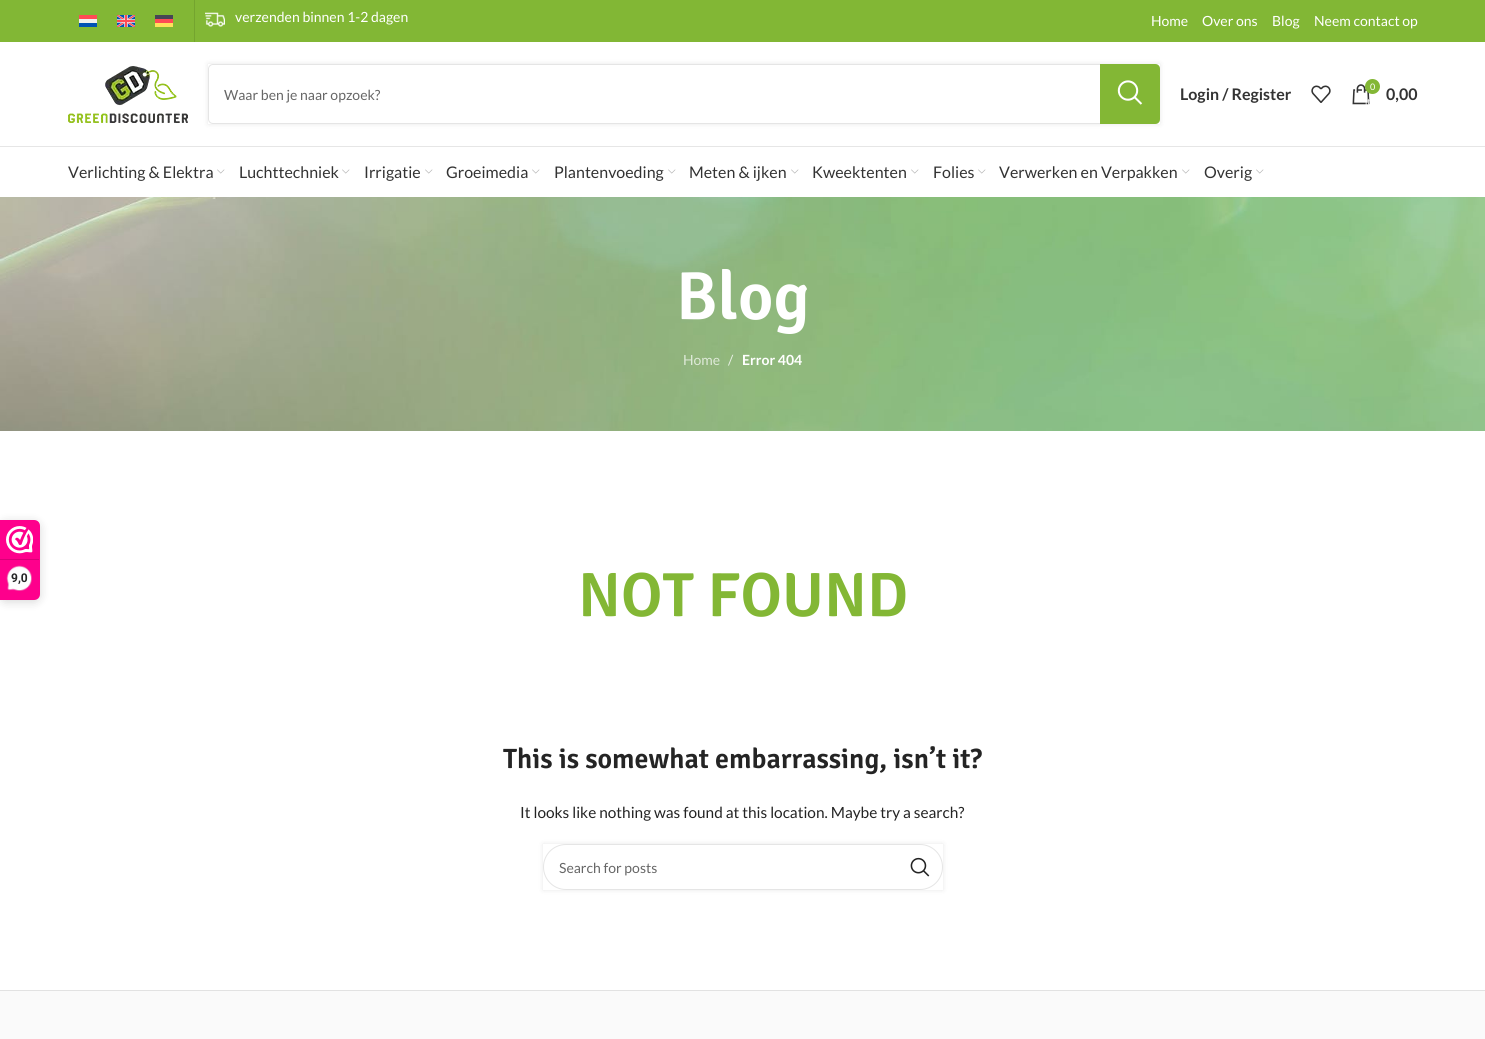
import math
import cairo


def round_path(ctx, x, y, w, h, r):
	ctx.new_sub_path()
	for i, (u, v) in enumerate([(x + w - r, y + h - r), (x + r, y + h - r), (x + r, y + r), (x + w - r, y + r)]):
		ctx.arc(u, v, r, i * math.pi / 2, (i + 1) * math.pi / 2)
	ctx.close_path()

def blur_box(ctx, x, y, w, h, r, blur, alpha):
	ctx.push_group_with_content(cairo.CONTENT_ALPHA)
	ctx.set_operator(cairo.OPERATOR_SOURCE)
	for i in range(15, -16, -2):
		e = blur * i / 6
		if min(w, h) + 2 * e > 0:
			ctx.set_source_rgba(0, 0, 0, alpha * math.erfc((i - 1) / 8.5) / 2)
			round_path(ctx, x - e, y - e, w + 2 * e, h + 2 * e, max(0, min(r + e + blur * .6, min(w, h) / 2 + e)))
			ctx.fill()
	ctx.mask(ctx.pop_group())

def paste(ctx, path, x, y, w, h):
	ctx.save()
	ctx.set_source_surface(cairo.ImageSurface.create_from_png(path), x, y)
	ctx.rectangle(x, y, w, h)
	ctx.fill()
	ctx.restore()

def draw(ctx):
	ctx.set_source_rgb(1, 1, 1)
	ctx.paint()
	ctx.set_source_rgb(0, 0, 0)
	blur_box(ctx, 0, 522, 40, 80, 6, 5, 0.15)
	ctx.set_source_rgb(0.996, 0, 0.549)
	ctx.new_path()
	ctx.move_to(0, 520)
	ctx.line_to(34, 520)
	ctx.curve_to(37.5, 520, 40, 522.5, 40, 526)
	ctx.line_to(40, 594)
	ctx.curve_to(40, 597.5, 37.5, 600, 34, 600)
	ctx.line_to(0, 600)
	ctx.close_path()
	ctx.fill()
	paste(ctx, 'media/1.png', 6, 526, 27, 28)
	ctx.set_source_rgb(0.847, 0, 0.467)
	ctx.rectangle(0, 559, 39, 1)
	ctx.fill()
	paste(ctx, 'media/2.png', 6, 565, 26, 26)
	ctx.select_font_face('Roboto', cairo.FONT_SLANT_NORMAL, cairo.FONT_WEIGHT_BOLD)
	ctx.set_font_size(12)
	ctx.set_source_rgb(0.141, 0.141, 0.141)
	ctx.move_to(11, 582)
	ctx.show_text('9,0')
	ctx.set_source_rgb(0.51, 0.718, 0.208)
	ctx.rectangle(0, 0, 1485, 42)
	ctx.fill()
	ctx.set_source_rgb(1, 0.294, 0.333)
	ctx.rectangle(79, 15, 18, 4)
	ctx.fill()
	ctx.set_source_rgb(0.941, 0.941, 0.941)
	ctx.rectangle(79, 19, 18, 4)
	ctx.fill()
	ctx.set_source_rgb(0, 0.322, 0.706)
	ctx.rectangle(79, 23, 18, 4)
	ctx.fill()
	paste(ctx, 'media/3.png', 117, 15, 18, 12)
	ctx.set_source_rgb(0.275, 0.275, 0.333)
	ctx.rectangle(155, 15, 18, 4)
	ctx.fill()
	ctx.set_source_rgb(1, 0.294, 0.333)
	ctx.rectangle(155, 19, 18, 4)
	ctx.fill()
	ctx.set_source_rgb(1, 0.882, 0.353)
	ctx.rectangle(155, 23, 18, 4)
	ctx.fill()
	ctx.set_source_rgb(0.455, 0.643, 0.184)
	ctx.rectangle(194, 0, 1, 42)
	ctx.fill()
	paste(ctx, 'media/4.png', 205, 12, 20, 15)
	ctx.select_font_face('Lato')
	ctx.set_font_size(14)
	ctx.set_source_rgb(1, 1, 1)
	for x, y, s in [
		(235, 22, 'verzenden binnen 1-2 dagen'),
		(1151, 26, 'Home'),
		(1202, 26, 'Over ons'),
		(1272, 26, 'Blog'),
		(1314, 26, 'Neem contact op'),
	]:
		ctx.move_to(x, y)
		ctx.show_text(s)
	ctx.set_source_rgb(0.902, 0.902, 0.902)
	ctx.rectangle(0, 146, 1485, 1)
	ctx.fill()
	paste(ctx, 'media/5.png', 68, 66, 120, 57)
	ctx.save()
	ctx.set_fill_rule(cairo.FILL_RULE_EVEN_ODD)
	ctx.new_path()
	ctx.move_to(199, 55)
	ctx.line_to(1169, 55)
	ctx.line_to(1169, 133)
	ctx.line_to(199, 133)
	ctx.close_path()
	ctx.move_to(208, 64)
	ctx.line_to(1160, 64)
	ctx.line_to(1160, 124)
	ctx.line_to(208, 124)
	ctx.close_path()
	ctx.clip()
	ctx.set_source_rgb(0, 0, 0)
	blur_box(ctx, 208, 64, 952, 60, 0, 2.5, 0.1)
	ctx.restore()
	round_path(ctx, 208.5, 64.5, 951, 59, 4.5)
	ctx.set_source_rgb(0.898, 0.898, 0.898)
	ctx.set_line_width(1)
	ctx.stroke()
	ctx.set_source_rgb(0.4, 0.4, 0.4)
	ctx.move_to(224, 100)
	ctx.show_text('Waar ben je naar opzoek?')
	ctx.set_source_rgb(0.514, 0.718, 0.208)
	ctx.new_path()
	ctx.move_to(1100, 64)
	ctx.line_to(1155, 64)
	ctx.curve_to(1158, 64, 1160, 66, 1160, 69)
	ctx.line_to(1160, 119)
	ctx.curve_to(1160, 122, 1158, 124, 1155, 124)
	ctx.line_to(1100, 124)
	ctx.close_path()
	ctx.fill()
	paste(ctx, 'media/6.png', 1117, 80, 26, 25)
	ctx.select_font_face('Lato', cairo.FONT_SLANT_NORMAL, cairo.FONT_WEIGHT_BOLD)
	ctx.set_font_size(16)
	ctx.set_source_rgb(0.2, 0.2, 0.2)
	ctx.move_to(1180, 100)
	ctx.show_text('Login / Register')
	paste(ctx, 'media/7.png', 1311, 85, 20, 18)
	paste(ctx, 'media/8.png', 1352, 84, 18, 21)
	ctx.set_source_rgb(0.514, 0.718, 0.208)
	ctx.arc(1372.5, 86.5, 7.5, 0, 2 * math.pi)
	ctx.fill()
	ctx.select_font_face('Lato')
	ctx.set_font_size(9)
	ctx.set_source_rgb(1, 1, 1)
	ctx.move_to(1370, 90)
	ctx.show_text('0')
	ctx.move_to(1365, 105)
	ctx.show_text('it')
	ctx.select_font_face('Lato', cairo.FONT_SLANT_NORMAL, cairo.FONT_WEIGHT_BOLD)
	ctx.set_font_size(16)
	ctx.set_source_rgb(0.2, 0.2, 0.2)
	ctx.move_to(1386, 100)
	ctx.show_text('0,00')
	ctx.select_font_face('Lato')
	ctx.move_to(68, 178)
	ctx.show_text('Verlichting & Elektra')
	paste(ctx, 'media/9.png', 217, 169, 8, 5)
	ctx.move_to(239, 178)
	ctx.show_text('Luchttechniek')
	paste(ctx, 'media/9.png', 342, 169, 8, 5)
	ctx.move_to(364, 178)
	ctx.show_text('Irrigatie')
	paste(ctx, 'media/9.png', 425, 169, 8, 5)
	ctx.move_to(446, 178)
	ctx.show_text('Groeimedia')
	paste(ctx, 'media/9.png', 532, 169, 8, 5)
	ctx.move_to(554, 178)
	ctx.show_text('Plantenvoeding')
	paste(ctx, 'media/9.png', 668, 169, 8, 5)
	ctx.move_to(689, 178)
	ctx.show_text('Meten & ijken')
	paste(ctx, 'media/9.png', 791, 169, 8, 5)
	ctx.move_to(812, 178)
	ctx.show_text('Kweektenten')
	paste(ctx, 'media/9.png', 911, 169, 8, 5)
	ctx.move_to(933, 178)
	ctx.show_text('Folies')
	paste(ctx, 'media/9.png', 978, 169, 8, 5)
	ctx.move_to(999, 178)
	ctx.show_text('Verwerken en Verpakken')
	paste(ctx, 'media/9.png', 1182, 169, 8, 5)
	ctx.move_to(1204, 178)
	ctx.show_text('Overig')
	paste(ctx, 'media/9.png', 1256, 169, 8, 5)
	paste(ctx, 'media/10.png', 0, 197, 1485, 234)
	ctx.select_font_face('Signika SemiBold')
	ctx.set_font_size(68)
	ctx.set_source_rgb(1, 1, 1)
	ctx.move_to(676, 319)
	ctx.show_text('Blog')
	ctx.select_font_face('Lato')
	ctx.set_font_size(14)
	ctx.set_source_rgb(0.871, 0.914, 0.847)
	ctx.move_to(683, 365)
	ctx.show_text('Home')
	ctx.set_source_rgb(0.914, 0.945, 0.898)
	ctx.move_to(728, 365)
	ctx.show_text('/')
	ctx.select_font_face('Lato', cairo.FONT_SLANT_NORMAL, cairo.FONT_WEIGHT_BOLD)
	ctx.set_source_rgb(1, 1, 1)
	ctx.move_to(742, 365)
	ctx.show_text('Error 404')
	ctx.select_font_face('Signika SemiBold')
	ctx.set_font_size(62.5)
	ctx.set_source_rgb(0.514, 0.718, 0.208)
	ctx.move_to(578, 616)
	ctx.show_text('NOT FOUND')
	ctx.set_font_size(28)
	ctx.set_source_rgb(0.141, 0.141, 0.141)
	ctx.move_to(503, 768)
	ctx.show_text('This is somewhat embarrassing, isn’t it?')
	ctx.select_font_face('Lato')
	ctx.set_font_size(15.4)
	ctx.move_to(520, 818)
	ctx.show_text('It looks like nothing was found at this location. Maybe try a search?')
	ctx.save()
	ctx.set_fill_rule(cairo.FILL_RULE_EVEN_ODD)
	ctx.new_path()
	ctx.move_to(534, 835)
	ctx.line_to(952, 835)
	ctx.line_to(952, 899)
	ctx.line_to(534, 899)
	ctx.close_path()
	ctx.move_to(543, 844)
	ctx.line_to(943, 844)
	ctx.line_to(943, 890)
	ctx.line_to(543, 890)
	ctx.close_path()
	ctx.clip()
	ctx.set_source_rgb(0, 0, 0)
	blur_box(ctx, 543, 844, 400, 46, 0, 2.5, 0.1)
	ctx.restore()
	round_path(ctx, 543.5, 844.5, 399, 45, 22.5)
	ctx.set_source_rgb(0.898, 0.898, 0.898)
	ctx.stroke()
	ctx.set_font_size(14)
	ctx.set_source_rgb(0.4, 0.4, 0.4)
	ctx.move_to(559, 873)
	ctx.show_text('Search for posts')
	paste(ctx, 'media/11.png', 910, 857, 20, 20)
	ctx.set_source_rgb(0.98, 0.98, 0.98)
	ctx.rectangle(0, 991, 1485, 48)
	ctx.fill()
	ctx.set_source_rgb(0.886, 0.886, 0.886)
	ctx.rectangle(0, 990, 1485, 1)
	ctx.fill()


surface = cairo.ImageSurface(cairo.FORMAT_RGB24, 1485, 1039)
ctx = cairo.Context(surface)
options = cairo.FontOptions()
options.set_hint_metrics(cairo.HINT_METRICS_OFF)
options.set_hint_style(cairo.HINT_STYLE_NONE)
ctx.set_font_options(options)
ctx.set_miter_limit(4)
draw(ctx)
surface.write_to_png('image.png')
